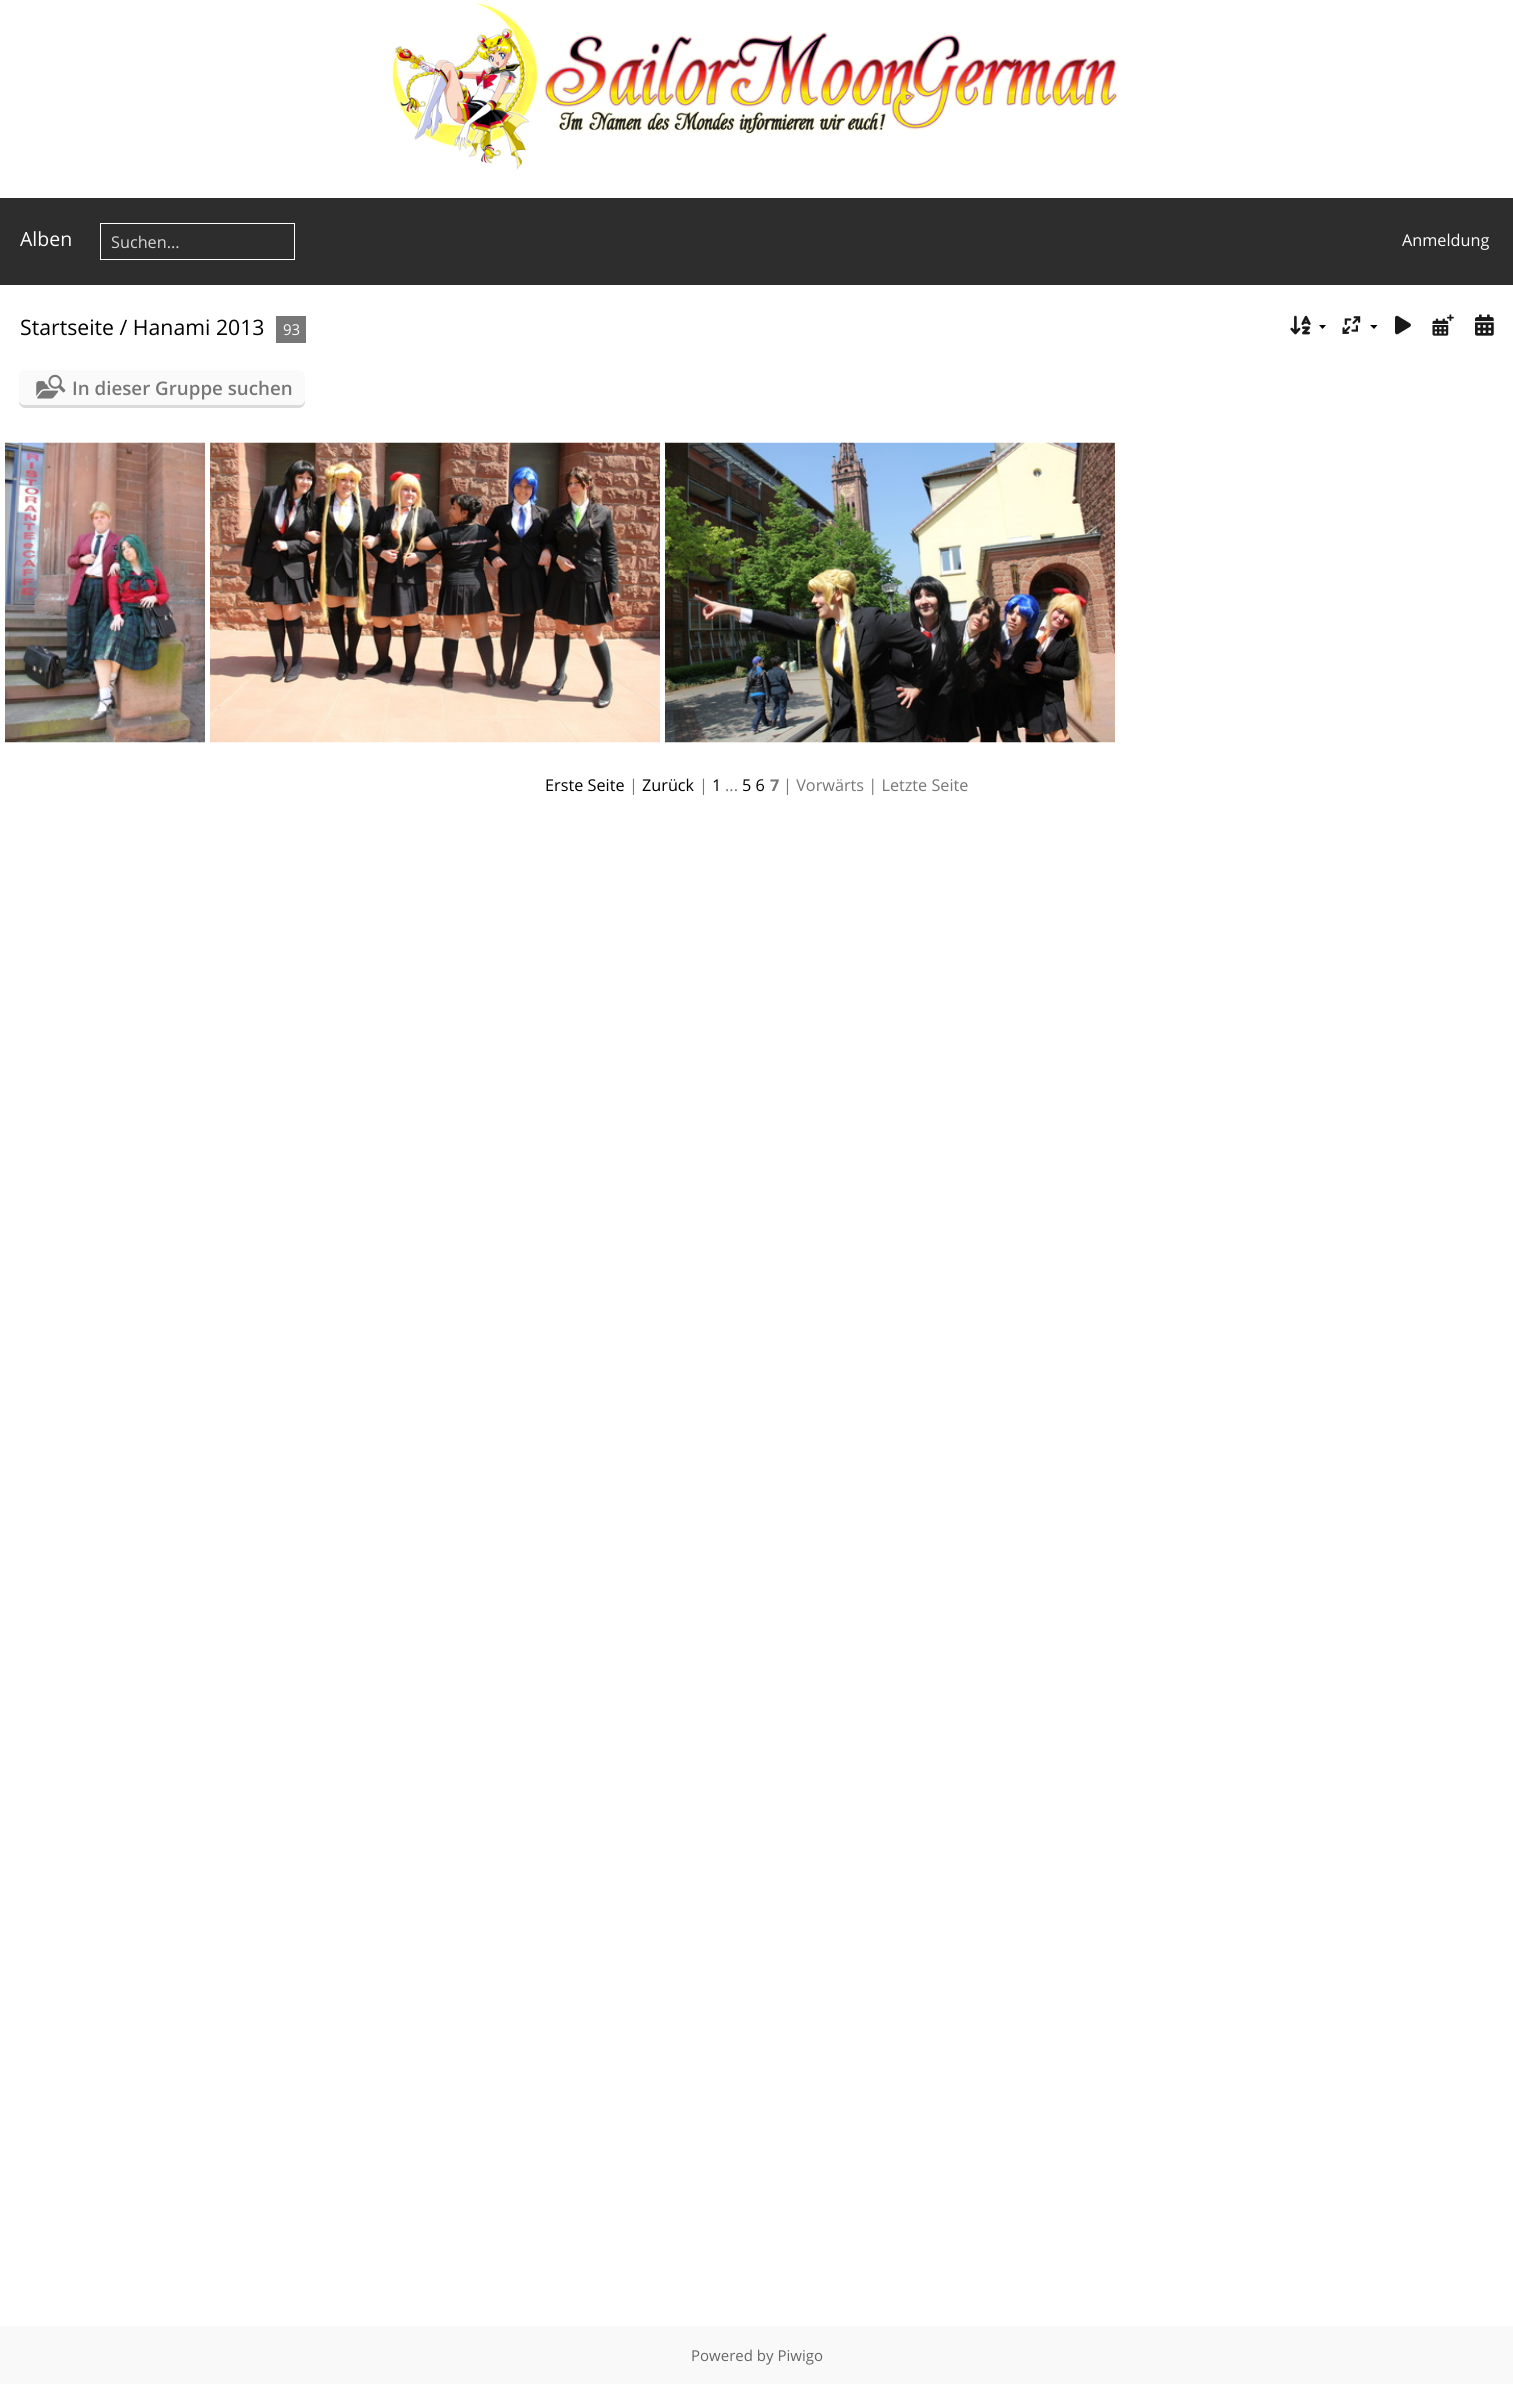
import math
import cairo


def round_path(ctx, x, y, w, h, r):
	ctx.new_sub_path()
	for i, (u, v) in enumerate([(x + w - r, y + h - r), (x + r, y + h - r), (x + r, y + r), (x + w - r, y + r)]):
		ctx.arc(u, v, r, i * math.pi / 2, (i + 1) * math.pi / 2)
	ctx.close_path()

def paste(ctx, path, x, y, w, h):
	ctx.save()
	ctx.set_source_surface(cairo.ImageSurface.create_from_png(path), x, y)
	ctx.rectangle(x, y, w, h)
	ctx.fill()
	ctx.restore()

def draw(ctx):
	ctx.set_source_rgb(1, 1, 1)
	ctx.paint()
	paste(ctx, 'media/1.png', 391, 2, 727, 168)
	ctx.set_source_rgb(0.176, 0.176, 0.176)
	ctx.rectangle(0, 198, 1513, 87)
	ctx.fill()
	ctx.select_font_face('Open Sans')
	ctx.set_font_size(19.5)
	ctx.set_source_rgb(1, 1, 1)
	ctx.move_to(20, 246)
	ctx.show_text('Alben')
	ctx.rectangle(100.5, 223.5, 194, 36)
	ctx.set_line_width(1)
	ctx.stroke()
	ctx.set_font_size(16.25)
	ctx.set_source_rgb(0.839, 0.839, 0.839)
	ctx.move_to(111, 248)
	ctx.show_text('Suchen...')
	ctx.set_source_rgb(1, 1, 1)
	ctx.move_to(1402, 246)
	ctx.show_text('Anmeldung')
	ctx.set_font_size(21.25)
	ctx.set_source_rgb(0, 0, 0)
	ctx.move_to(20, 335)
	ctx.show_text('Startseite / Hanami 2013')
	ctx.set_source_rgb(0.467, 0.467, 0.467)
	ctx.rectangle(276, 316, 30, 27)
	ctx.fill()
	ctx.set_font_size(15)
	ctx.set_source_rgb(1, 1, 1)
	ctx.move_to(283, 335)
	ctx.show_text('93')
	paste(ctx, 'media/2.png', 1290, 315, 21, 20)
	ctx.set_source_rgb(0, 0, 0)
	ctx.new_path()
	ctx.move_to(1319, 325)
	ctx.line_to(1326, 325)
	ctx.line_to(1322.5, 329)
	ctx.close_path()
	ctx.move_to(1370, 325)
	ctx.line_to(1377.5, 325)
	ctx.line_to(1374, 329)
	ctx.close_path()
	ctx.fill()
	paste(ctx, 'media/3.png', 1395, 315, 16, 20)
	paste(ctx, 'media/4.png', 1432, 314, 22, 22)
	paste(ctx, 'media/5.png', 1475, 314, 19, 22)
	paste(ctx, 'media/6.png', 1342, 316, 19, 18)
	ctx.set_source_rgb(0.859, 0.859, 0.859)
	ctx.new_path()
	ctx.move_to(19, 401)
	ctx.line_to(19, 402)
	ctx.curve_to(19, 405, 22, 408, 25, 408)
	ctx.line_to(299, 408)
	ctx.curve_to(302, 408, 305, 405, 305, 402)
	ctx.line_to(305, 399)
	ctx.curve_to(305, 402, 302, 405, 299, 405)
	ctx.line_to(25, 405)
	ctx.curve_to(22, 405, 20, 403, 19, 401)
	ctx.close_path()
	ctx.fill()
	ctx.set_source_rgb(0.98, 0.98, 0.98)
	round_path(ctx, 19, 370, 286, 35, 6)
	ctx.fill()
	paste(ctx, 'media/7.png', 36, 374, 30, 25)
	ctx.select_font_face('Open Sans SemiBold')
	ctx.set_font_size(18.75)
	ctx.set_source_rgb(0.467, 0.467, 0.467)
	ctx.move_to(72, 395)
	ctx.show_text('In dieser Gruppe suchen')
	paste(ctx, 'media/8.png', 5, 442, 200, 301)
	paste(ctx, 'media/9.png', 210, 442, 450, 301)
	paste(ctx, 'media/10.png', 665, 442, 450, 301)
	ctx.select_font_face('Open Sans')
	ctx.set_font_size(16.25)
	ctx.set_source_rgb(0, 0, 0)
	ctx.move_to(545, 791)
	ctx.show_text('Erste Seite')
	ctx.set_source_rgb(0.467, 0.467, 0.467)
	ctx.move_to(629, 791)
	ctx.show_text('|')
	ctx.set_source_rgb(0, 0, 0)
	ctx.move_to(642, 791)
	ctx.show_text('Zurück')
	ctx.set_source_rgb(0.467, 0.467, 0.467)
	ctx.move_to(699, 791)
	ctx.show_text('|')
	ctx.set_source_rgb(0, 0, 0)
	ctx.move_to(712, 791)
	ctx.show_text('1')
	ctx.set_source_rgb(0.467, 0.467, 0.467)
	ctx.move_to(725, 791)
	ctx.show_text('...')
	ctx.set_source_rgb(0, 0, 0)
	ctx.move_to(742, 791)
	ctx.show_text('5 6')
	ctx.select_font_face('Open Sans', cairo.FONT_SLANT_NORMAL, cairo.FONT_WEIGHT_BOLD)
	ctx.set_source_rgb(0.467, 0.467, 0.467)
	ctx.move_to(770, 791)
	ctx.show_text('7')
	ctx.select_font_face('Open Sans')
	ctx.move_to(783, 791)
	ctx.show_text('| Vorwärts | Letzte Seite')
	ctx.set_source_rgb(0.976, 0.976, 0.976)
	ctx.rectangle(0, 2326, 1513, 58)
	ctx.fill()
	ctx.set_font_size(15)
	ctx.set_source_rgb(0.4, 0.4, 0.4)
	ctx.move_to(691, 2361)
	ctx.show_text('Powered by Piwigo')


surface = cairo.ImageSurface(cairo.FORMAT_RGB24, 1513, 2384)
ctx = cairo.Context(surface)
options = cairo.FontOptions()
options.set_hint_metrics(cairo.HINT_METRICS_OFF)
options.set_hint_style(cairo.HINT_STYLE_NONE)
ctx.set_font_options(options)
ctx.set_miter_limit(4)
draw(ctx)
surface.write_to_png('image.png')
